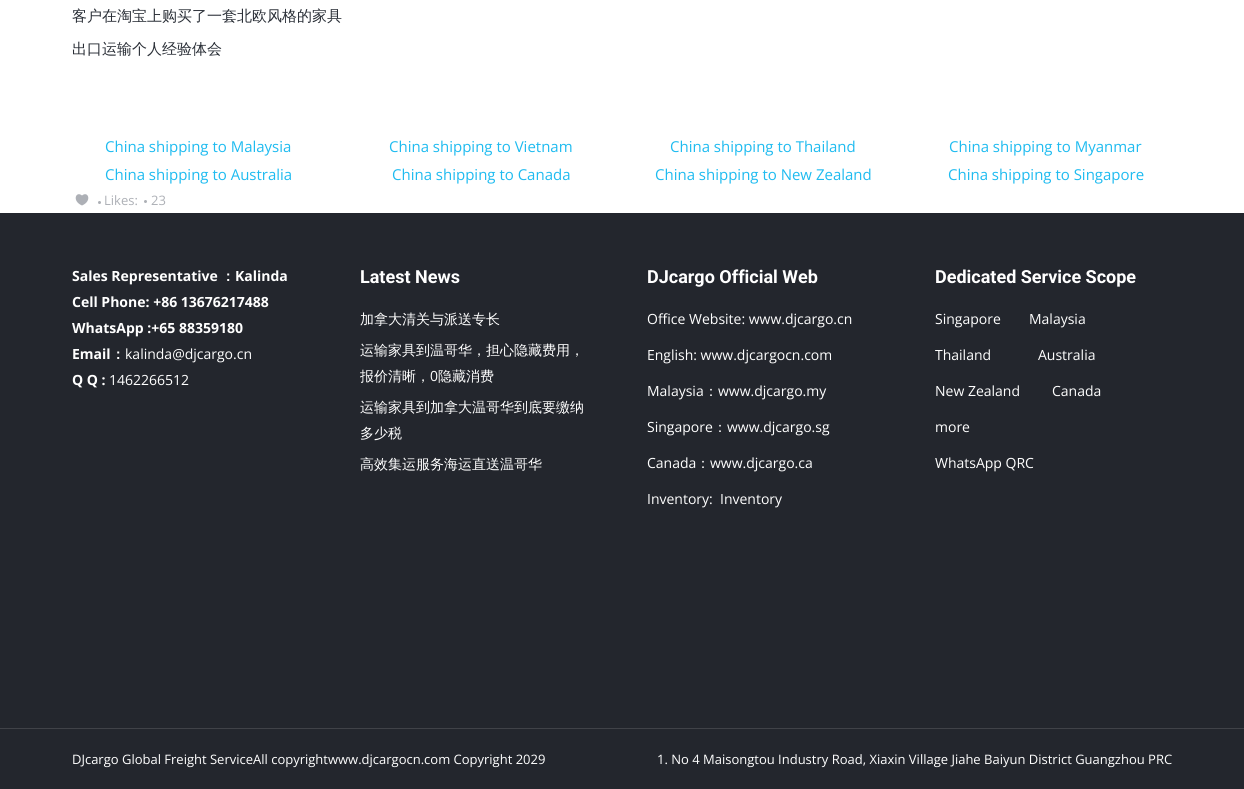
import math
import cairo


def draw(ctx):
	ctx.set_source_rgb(1, 1, 1)
	ctx.paint()
	ctx.select_font_face('WenQuanYi Zen Hei Medium')
	ctx.set_font_size(15)
	ctx.set_source_rgb(0.161, 0.18, 0.212)
	ctx.move_to(72, 21)
	ctx.show_text('客户在淘宝上购买了一套北欧风格的家具')
	ctx.move_to(72, 54)
	ctx.show_text('出口运输个人经验体会')
	ctx.select_font_face('Open Sans')
	ctx.set_source_rgb(0.118, 0.733, 0.941)
	for x, y, s in [
		(105, 152, 'China shipping to Malaysia'),
		(105, 180, 'China shipping to Australia'),
		(389, 152, 'China shipping to Vietnam'),
		(392, 180, 'China shipping to Canada'),
		(670, 152, 'China shipping to Thailand'),
		(655, 180, 'China shipping to New Zealand'),
		(949, 152, 'China shipping to Myanmar'),
		(948, 180, 'China shipping to Singapore'),
	]:
		ctx.move_to(x, y)
		ctx.show_text(s)
	ctx.set_source_rgb(0.678, 0.69, 0.714)
	ctx.new_path()
	ctx.move_to(82, 205.5)
	ctx.curve_to(92.5, 201, 88, 190.5, 82, 195.5)
	ctx.curve_to(76, 190.5, 71.5, 201, 82, 205.5)
	ctx.close_path()
	ctx.fill()
	ctx.arc(99.5, 202.5, 1.5, 0, 2 * math.pi)
	ctx.fill()
	ctx.set_font_size(13)
	ctx.move_to(104, 205)
	ctx.show_text('Likes:')
	ctx.new_path()
	ctx.arc(145.5, 201.5, 1.5, 0, 2 * math.pi)
	ctx.fill()
	ctx.move_to(151, 205)
	ctx.show_text('23')
	ctx.set_source_rgb(0.137, 0.149, 0.176)
	ctx.rectangle(0, 213, 1244, 576)
	ctx.fill()
	ctx.select_font_face('Open Sans', cairo.FONT_SLANT_NORMAL, cairo.FONT_WEIGHT_BOLD)
	ctx.set_font_size(14)
	ctx.set_source_rgb(1, 1, 1)
	ctx.move_to(72, 281)
	ctx.show_text('Sales Representative')
	ctx.select_font_face('WenQuanYi Zen Hei', cairo.FONT_SLANT_NORMAL, cairo.FONT_WEIGHT_BOLD)
	ctx.move_to(221, 281)
	ctx.show_text('：')
	ctx.select_font_face('Open Sans', cairo.FONT_SLANT_NORMAL, cairo.FONT_WEIGHT_BOLD)
	for x, y, s in [
		(235, 281, 'Kalinda'),
		(72, 307, 'Cell Phone: +86 13676217488'),
		(72, 333, 'WhatsApp :+65 88359180'),
		(72, 359, 'Email'),
	]:
		ctx.move_to(x, y)
		ctx.show_text(s)
	ctx.select_font_face('WenQuanYi Zen Hei', cairo.FONT_SLANT_NORMAL, cairo.FONT_WEIGHT_BOLD)
	ctx.move_to(111, 359)
	ctx.show_text('：')
	ctx.select_font_face('Open Sans')
	ctx.move_to(125, 359)
	ctx.show_text('kalinda@djcargo.cn')
	ctx.select_font_face('Open Sans', cairo.FONT_SLANT_NORMAL, cairo.FONT_WEIGHT_BOLD)
	ctx.move_to(72, 385)
	ctx.show_text('Q Q :')
	ctx.select_font_face('Open Sans')
	ctx.move_to(109, 385)
	ctx.show_text('1462266512')
	ctx.select_font_face('Roboto', cairo.FONT_SLANT_NORMAL, cairo.FONT_WEIGHT_BOLD)
	ctx.set_font_size(18)
	ctx.move_to(360, 283)
	ctx.show_text('Latest News')
	ctx.select_font_face('WenQuanYi Zen Hei Medium')
	ctx.set_font_size(14)
	for x, y, s in [
		(360, 324, '加拿大清关与派送专长'),
		(360, 355, '运输家具到温哥华，担心隐藏费用，'),
		(360, 381, '报价清晰，'),
	]:
		ctx.move_to(x, y)
		ctx.show_text(s)
	ctx.select_font_face('Open Sans')
	ctx.move_to(430, 381)
	ctx.show_text('0')
	ctx.select_font_face('WenQuanYi Zen Hei Medium')
	for x, y, s in [
		(438, 381, '隐藏消费'),
		(360, 412, '运输家具到加拿大温哥华到底要缴纳'),
		(360, 438, '多少税'),
		(360, 469, '高效集运服务海运直送温哥华'),
	]:
		ctx.move_to(x, y)
		ctx.show_text(s)
	ctx.select_font_face('Roboto', cairo.FONT_SLANT_NORMAL, cairo.FONT_WEIGHT_BOLD)
	ctx.set_font_size(18)
	ctx.move_to(647, 283)
	ctx.show_text('DJcargo Official Web')
	ctx.select_font_face('Open Sans')
	ctx.set_font_size(14)
	for x, y, s in [
		(647, 324, 'Office Website: www.djcargo.cn'),
		(647, 360, 'English: www.djcargocn.com'),
		(647, 396, 'Malaysia'),
	]:
		ctx.move_to(x, y)
		ctx.show_text(s)
	ctx.select_font_face('WenQuanYi Zen Hei Medium')
	ctx.move_to(704, 396)
	ctx.show_text('：')
	ctx.select_font_face('Open Sans')
	ctx.move_to(718, 396)
	ctx.show_text('www.djcargo.my')
	ctx.move_to(647, 432)
	ctx.show_text('Singapore')
	ctx.select_font_face('WenQuanYi Zen Hei Medium')
	ctx.move_to(713, 432)
	ctx.show_text('：')
	ctx.select_font_face('Open Sans')
	ctx.move_to(727, 432)
	ctx.show_text('www.djcargo.sg')
	ctx.move_to(647, 468)
	ctx.show_text('Canada')
	ctx.select_font_face('WenQuanYi Zen Hei Medium')
	ctx.move_to(696, 468)
	ctx.show_text('：')
	ctx.select_font_face('Open Sans')
	for x, y, s in [
		(710, 468, 'www.djcargo.ca'),
		(647, 504, 'Inventory:'),
		(720, 504, 'Inventory'),
	]:
		ctx.move_to(x, y)
		ctx.show_text(s)
	ctx.select_font_face('Roboto', cairo.FONT_SLANT_NORMAL, cairo.FONT_WEIGHT_BOLD)
	ctx.set_font_size(18)
	ctx.move_to(935, 283)
	ctx.show_text('Dedicated Service Scope')
	ctx.select_font_face('Open Sans')
	ctx.set_font_size(14)
	for x, y, s in [
		(935, 324, 'Singapore'),
		(1029, 324, 'Malaysia'),
		(935, 360, 'Thailand'),
		(1038, 360, 'Australia'),
		(935, 396, 'New Zealand'),
		(1052, 396, 'Canada'),
		(935, 432, 'more'),
		(935, 468, 'WhatsApp QRC'),
	]:
		ctx.move_to(x, y)
		ctx.show_text(s)
	ctx.set_source_rgb(0.251, 0.259, 0.282)
	ctx.rectangle(0, 728, 1244, 1)
	ctx.fill()
	ctx.set_font_size(13)
	ctx.set_source_rgb(1, 1, 1)
	ctx.move_to(72, 764)
	ctx.show_text('DJcargo Global Freight ServiceAll copyrightwww.djcargocn.com Copyright 2029')
	ctx.move_to(657, 764)
	ctx.show_text('1. No 4 Maisongtou Industry Road, Xiaxin Village Jiahe Baiyun District Guangzhou PRC')


surface = cairo.ImageSurface(cairo.FORMAT_RGB24, 1244, 789)
ctx = cairo.Context(surface)
options = cairo.FontOptions()
options.set_hint_metrics(cairo.HINT_METRICS_OFF)
options.set_hint_style(cairo.HINT_STYLE_NONE)
ctx.set_font_options(options)
ctx.set_miter_limit(4)
draw(ctx)
surface.write_to_png('image.png')
